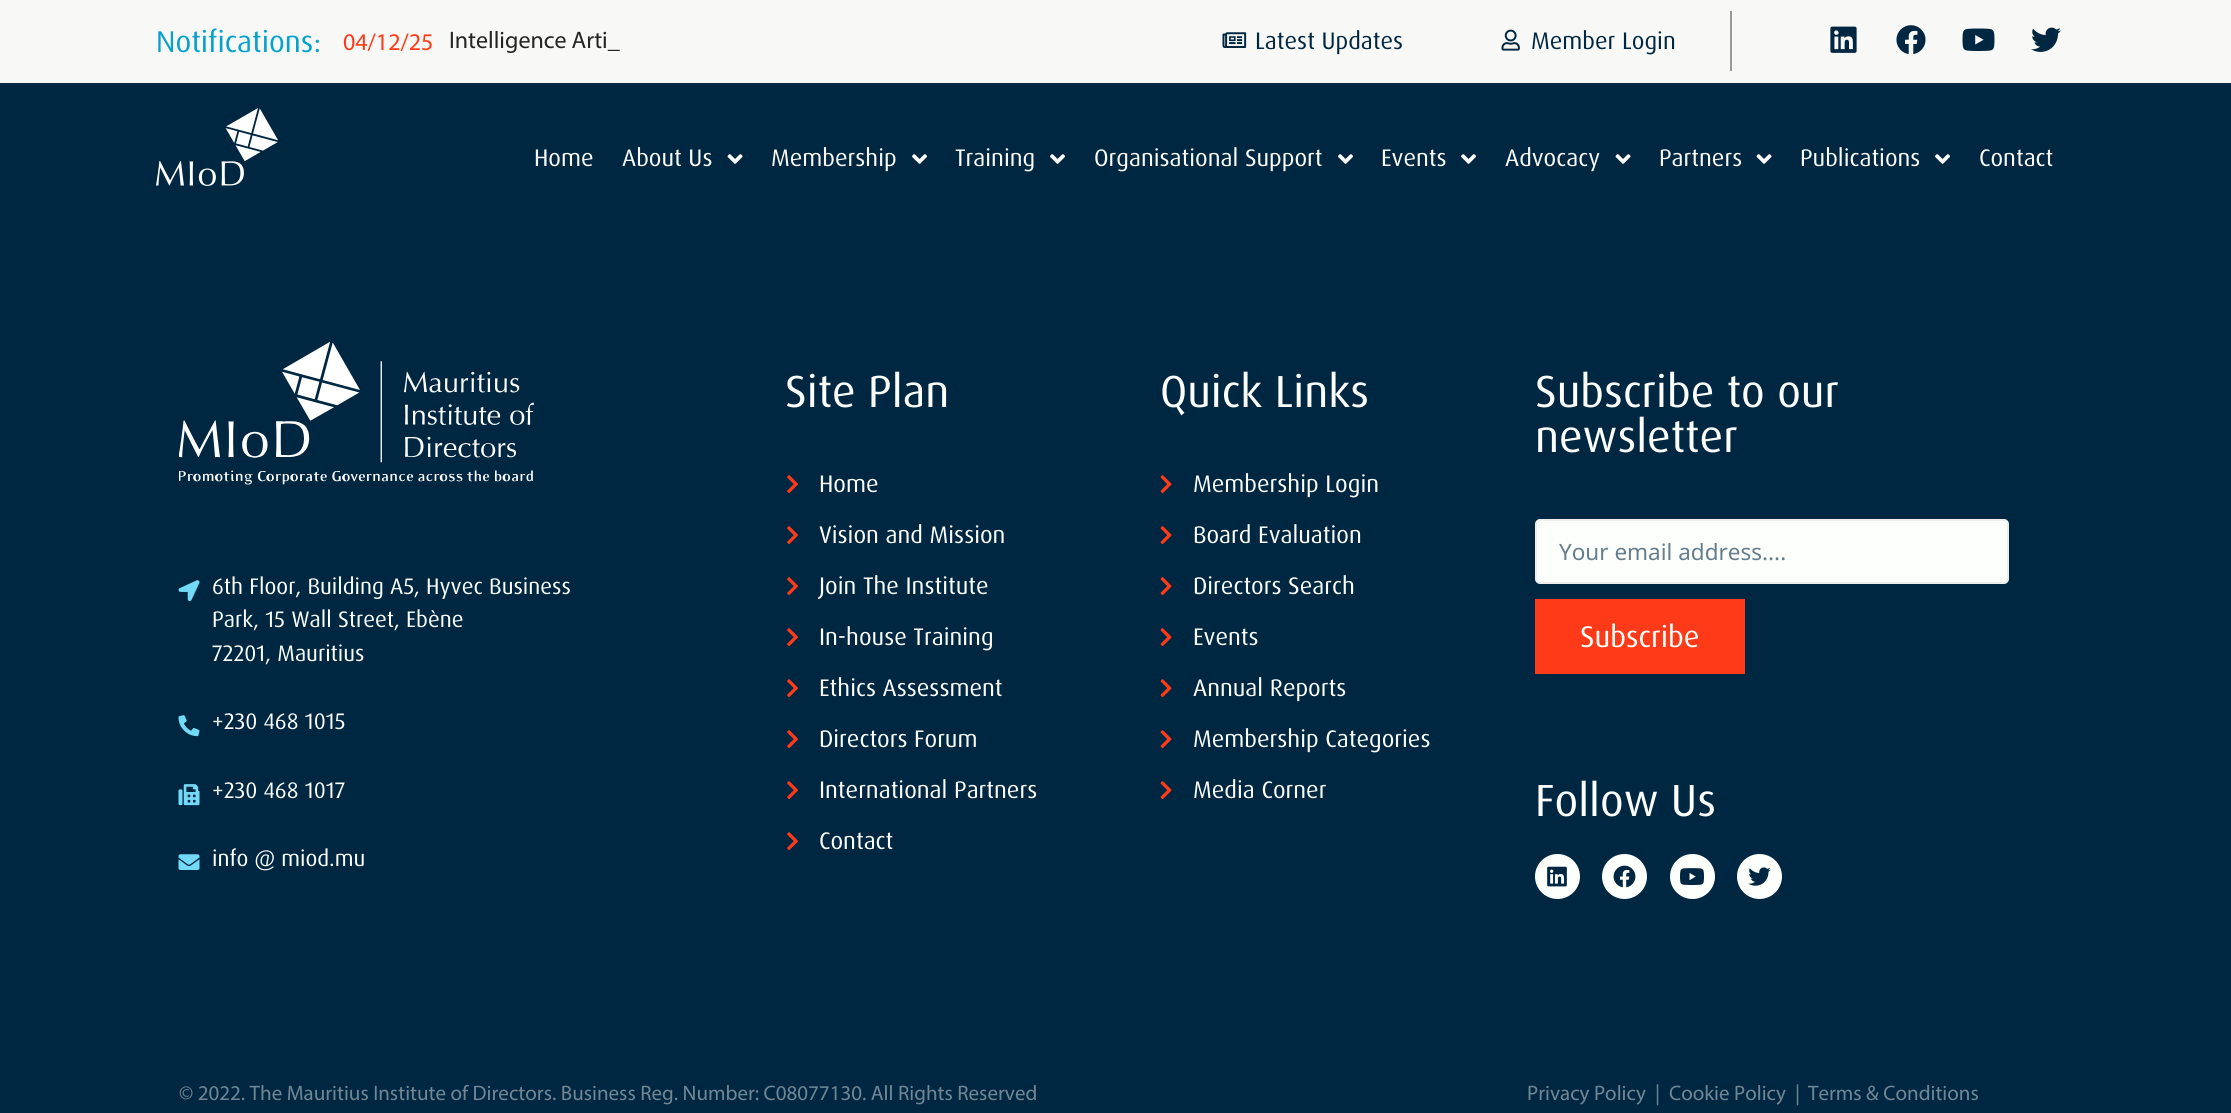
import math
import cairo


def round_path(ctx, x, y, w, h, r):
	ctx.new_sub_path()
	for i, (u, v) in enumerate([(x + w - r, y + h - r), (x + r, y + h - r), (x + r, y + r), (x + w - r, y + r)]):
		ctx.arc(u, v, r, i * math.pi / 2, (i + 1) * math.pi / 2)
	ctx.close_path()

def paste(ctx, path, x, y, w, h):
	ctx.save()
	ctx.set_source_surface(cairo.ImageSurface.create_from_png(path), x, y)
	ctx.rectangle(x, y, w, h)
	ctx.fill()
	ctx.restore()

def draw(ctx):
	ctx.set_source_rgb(0.969, 0.969, 0.961)
	ctx.paint()
	ctx.select_font_face('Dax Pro')
	ctx.set_font_size(30)
	ctx.set_source_rgb(0.02, 0.635, 0.808)
	ctx.move_to(156, 52)
	ctx.show_text('Notifications:')
	ctx.select_font_face('Myriad')
	ctx.set_font_size(24)
	ctx.set_source_rgb(1, 0.227, 0.094)
	ctx.move_to(343, 50)
	ctx.show_text('04/12/25')
	ctx.set_source_rgb(0.145, 0.145, 0.145)
	ctx.move_to(449, 48)
	ctx.show_text('Intelligence Arti_')
	paste(ctx, 'media/1.png', 1222, 32, 25, 16)
	ctx.select_font_face('Dax Pro')
	ctx.set_source_rgb(0, 0.153, 0.255)
	ctx.move_to(1255, 49)
	ctx.show_text('Latest Updates')
	paste(ctx, 'media/2.png', 1501, 29, 19, 22)
	ctx.move_to(1531, 49)
	ctx.show_text('Member Login')
	ctx.set_source_rgb(0.6, 0.6, 0.6)
	ctx.rectangle(1730, 11, 2, 60)
	ctx.fill()
	paste(ctx, 'media/3.png', 1830, 26, 27, 27)
	paste(ctx, 'media/4.png', 1896, 25, 30, 30)
	paste(ctx, 'media/5.png', 1962, 28, 33, 23)
	paste(ctx, 'media/6.png', 2031, 27, 30, 25)
	ctx.set_source_rgb(0, 0.153, 0.255)
	ctx.rectangle(0, 83, 2231, 1030)
	ctx.fill()
	paste(ctx, 'media/7.png', 156, 108, 122, 78)
	ctx.set_source_rgb(0.988, 1, 0.988)
	ctx.move_to(534, 166)
	ctx.show_text('Home')
	ctx.move_to(622, 166)
	ctx.show_text('About Us')
	paste(ctx, 'media/8.png', 727, 154, 16, 10)
	ctx.move_to(771, 166)
	ctx.show_text('Membership')
	paste(ctx, 'media/9.png', 912, 154, 15, 10)
	ctx.move_to(955, 166)
	ctx.show_text('Training')
	paste(ctx, 'media/9.png', 1050, 154, 15, 10)
	ctx.move_to(1094, 166)
	ctx.show_text('Organisational Support')
	paste(ctx, 'media/9.png', 1338, 154, 15, 10)
	ctx.move_to(1381, 166)
	ctx.show_text('Events')
	paste(ctx, 'media/9.png', 1461, 154, 15, 10)
	ctx.move_to(1505, 166)
	ctx.show_text('Advocacy')
	paste(ctx, 'media/8.png', 1615, 154, 16, 10)
	ctx.move_to(1659, 166)
	ctx.show_text('Partners')
	paste(ctx, 'media/8.png', 1756, 154, 16, 10)
	ctx.move_to(1800, 166)
	ctx.show_text('Publications')
	paste(ctx, 'media/9.png', 1935, 154, 15, 10)
	ctx.move_to(1979, 166)
	ctx.show_text('Contact')
	paste(ctx, 'media/10.png', 179, 341, 355, 144)
	paste(ctx, 'media/11.png', 178, 580, 22, 22)
	ctx.set_font_size(22.5)
	for x, y, s in [
		(212, 594, '6th Floor, Building A5, Hyvec Business'),
		(212, 627, 'Park, 15 Wall Street, Ebène'),
		(212, 661, '72201, Mauritius'),
	]:
		ctx.move_to(x, y)
		ctx.show_text(s)
	paste(ctx, 'media/12.png', 178, 715, 22, 22)
	ctx.move_to(212, 729)
	ctx.show_text('+230 468 1015')
	paste(ctx, 'media/13.png', 178, 784, 22, 22)
	ctx.move_to(212, 798)
	ctx.show_text('+230 468 1017')
	paste(ctx, 'media/14.png', 178, 854, 22, 16)
	ctx.move_to(212, 866)
	ctx.show_text('info @ miod.mu')
	ctx.set_font_size(45)
	ctx.move_to(785, 407)
	ctx.show_text('Site Plan')
	paste(ctx, 'media/15.png', 787, 475, 11, 18)
	ctx.set_font_size(24)
	ctx.move_to(819, 492)
	ctx.show_text('Home')
	paste(ctx, 'media/15.png', 787, 526, 11, 18)
	ctx.move_to(819, 543)
	ctx.show_text('Vision and Mission')
	paste(ctx, 'media/15.png', 787, 577, 11, 18)
	ctx.move_to(819, 594)
	ctx.show_text('Join The Institute')
	paste(ctx, 'media/15.png', 787, 628, 11, 18)
	ctx.move_to(819, 645)
	ctx.show_text('In-house Training')
	paste(ctx, 'media/15.png', 787, 679, 11, 18)
	ctx.move_to(819, 696)
	ctx.show_text('Ethics Assessment')
	paste(ctx, 'media/15.png', 787, 730, 11, 18)
	ctx.move_to(819, 747)
	ctx.show_text('Directors Forum')
	paste(ctx, 'media/15.png', 787, 781, 11, 18)
	ctx.move_to(819, 798)
	ctx.show_text('International Partners')
	paste(ctx, 'media/15.png', 787, 832, 11, 18)
	ctx.move_to(819, 849)
	ctx.show_text('Contact')
	ctx.set_font_size(45)
	ctx.move_to(1160, 407)
	ctx.show_text('Quick Links')
	paste(ctx, 'media/16.png', 1160, 475, 12, 19)
	ctx.set_font_size(24)
	ctx.move_to(1193, 492)
	ctx.show_text('Membership Login')
	paste(ctx, 'media/16.png', 1160, 526, 12, 19)
	ctx.move_to(1193, 543)
	ctx.show_text('Board Evaluation')
	paste(ctx, 'media/16.png', 1160, 577, 12, 19)
	ctx.move_to(1193, 594)
	ctx.show_text('Directors Search')
	paste(ctx, 'media/16.png', 1160, 628, 12, 19)
	ctx.move_to(1193, 645)
	ctx.show_text('Events')
	paste(ctx, 'media/16.png', 1160, 679, 12, 19)
	ctx.move_to(1193, 696)
	ctx.show_text('Annual Reports')
	paste(ctx, 'media/16.png', 1160, 730, 12, 19)
	ctx.move_to(1193, 747)
	ctx.show_text('Membership Categories')
	paste(ctx, 'media/16.png', 1160, 781, 12, 19)
	ctx.move_to(1193, 798)
	ctx.show_text('Media Corner')
	ctx.set_font_size(45)
	ctx.move_to(1535, 407)
	ctx.show_text('Subscribe to our')
	ctx.move_to(1535, 452)
	ctx.show_text('newsletter')
	round_path(ctx, 1536, 520, 472, 63, 4)
	ctx.fill_preserve()
	ctx.set_source_rgb(0.933, 0.933, 0.933)
	ctx.stroke()
	ctx.select_font_face('Noto Sans')
	ctx.set_font_size(22.5)
	ctx.set_source_rgb(0.396, 0.49, 0.549)
	ctx.move_to(1559, 560)
	ctx.show_text('Your email address....')
	ctx.set_source_rgb(1, 0.227, 0.094)
	ctx.rectangle(1535, 599, 210, 75)
	ctx.fill()
	ctx.select_font_face('Dax Pro')
	ctx.set_font_size(30)
	ctx.set_source_rgb(0.988, 1, 0.988)
	ctx.move_to(1580, 647)
	ctx.show_text('Subscribe')
	ctx.set_font_size(45)
	ctx.move_to(1535, 816)
	ctx.show_text('Follow Us')
	ctx.new_path()
	ctx.arc(1557.5, 876.5, 22.5, 0, 2 * math.pi)
	ctx.fill()
	paste(ctx, 'media/17.png', 1547, 866, 20, 21)
	ctx.arc(1624.5, 876.5, 22.5, 0, 2 * math.pi)
	ctx.fill()
	paste(ctx, 'media/18.png', 1613, 865, 23, 23)
	ctx.arc(1692.5, 876.5, 22.5, 0, 2 * math.pi)
	ctx.fill()
	paste(ctx, 'media/19.png', 1680, 868, 24, 17)
	ctx.arc(1759.5, 876.5, 22.5, 0, 2 * math.pi)
	ctx.fill()
	paste(ctx, 'media/20.png', 1748, 867, 23, 19)
	ctx.select_font_face('Myriad')
	ctx.set_font_size(21)
	ctx.set_source_rgb(0.439, 0.525, 0.584)
	for x, y, s in [
		(179, 1100, '© 2022. The Mauritius Institute of Directors. Business Reg. Number: C08077130. All Rights Reserved'),
		(1527, 1100, 'Privacy Policy'),
		(1655, 1100, '|'),
		(1669, 1100, 'Cookie Policy'),
		(1795, 1100, '|'),
		(1808, 1100, 'Terms & Conditions'),
	]:
		ctx.move_to(x, y)
		ctx.show_text(s)


surface = cairo.ImageSurface(cairo.FORMAT_RGB24, 2231, 1113)
ctx = cairo.Context(surface)
options = cairo.FontOptions()
options.set_hint_metrics(cairo.HINT_METRICS_OFF)
options.set_hint_style(cairo.HINT_STYLE_NONE)
ctx.set_font_options(options)
ctx.set_miter_limit(4)
draw(ctx)
surface.write_to_png('image.png')
